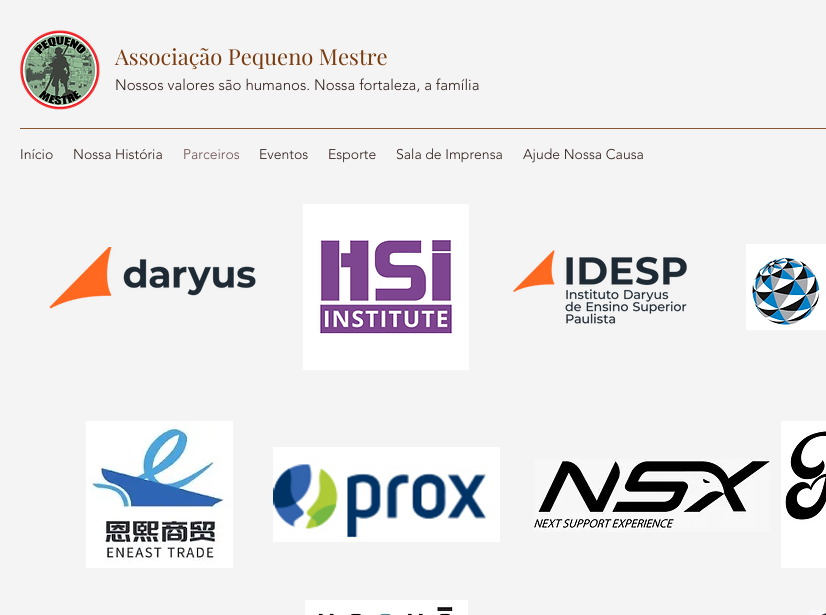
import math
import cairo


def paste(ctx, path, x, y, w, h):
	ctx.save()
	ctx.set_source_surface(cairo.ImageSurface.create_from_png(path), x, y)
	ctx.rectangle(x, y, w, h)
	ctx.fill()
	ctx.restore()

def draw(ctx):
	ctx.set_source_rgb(0.957, 0.957, 0.957)
	ctx.paint()
	paste(ctx, 'media/1.png', 20, 30, 80, 80)
	ctx.select_font_face('Playfair Display')
	ctx.set_font_size(22)
	ctx.set_source_rgb(0.471, 0.224, 0.047)
	ctx.move_to(115, 65)
	ctx.show_text('Associação Pequeno Mestre')
	ctx.select_font_face('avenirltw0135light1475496 Light')
	ctx.set_font_size(15)
	ctx.set_source_rgb(0.18, 0.11, 0.094)
	ctx.move_to(115, 90)
	ctx.show_text('Nossos valores são humanos. Nossa fortaleza, a família')
	ctx.set_source_rgb(0.545, 0.333, 0.184)
	ctx.rectangle(20, 128, 806, 1)
	ctx.fill()
	ctx.set_font_size(14)
	ctx.set_source_rgb(0.18, 0.11, 0.094)
	ctx.move_to(20, 159)
	ctx.show_text('Início')
	ctx.move_to(73, 159)
	ctx.show_text('Nossa História')
	ctx.set_source_rgb(0.427, 0.306, 0.31)
	ctx.move_to(183, 159)
	ctx.show_text('Parceiros')
	ctx.set_source_rgb(0.18, 0.11, 0.094)
	for x, y, s in [
		(259, 159, 'Eventos'),
		(328, 159, 'Esporte'),
		(396, 159, 'Sala de Imprensa'),
		(523, 159, 'Ajude Nossa Causa'),
	]:
		ctx.move_to(x, y)
		ctx.show_text(s)
	paste(ctx, 'media/2.png', 49, 247, 207, 62)
	paste(ctx, 'media/3.png', 303, 204, 166, 166)
	paste(ctx, 'media/4.png', 513, 250, 174, 74)
	paste(ctx, 'media/5.png', 746, 244, 80, 86)
	paste(ctx, 'media/6.png', 86, 421, 147, 147)
	paste(ctx, 'media/7.png', 273, 447, 227, 95)
	paste(ctx, 'media/8.png', 534, 459, 236, 73)
	paste(ctx, 'media/9.png', 781, 421, 45, 147)
	paste(ctx, 'media/10.png', 305, 600, 163, 15)
	paste(ctx, 'media/11.png', 809, 610, 17, 5)


surface = cairo.ImageSurface(cairo.FORMAT_RGB24, 826, 615)
ctx = cairo.Context(surface)
options = cairo.FontOptions()
options.set_hint_metrics(cairo.HINT_METRICS_OFF)
options.set_hint_style(cairo.HINT_STYLE_NONE)
ctx.set_font_options(options)
ctx.set_miter_limit(4)
draw(ctx)
surface.write_to_png('image.png')
